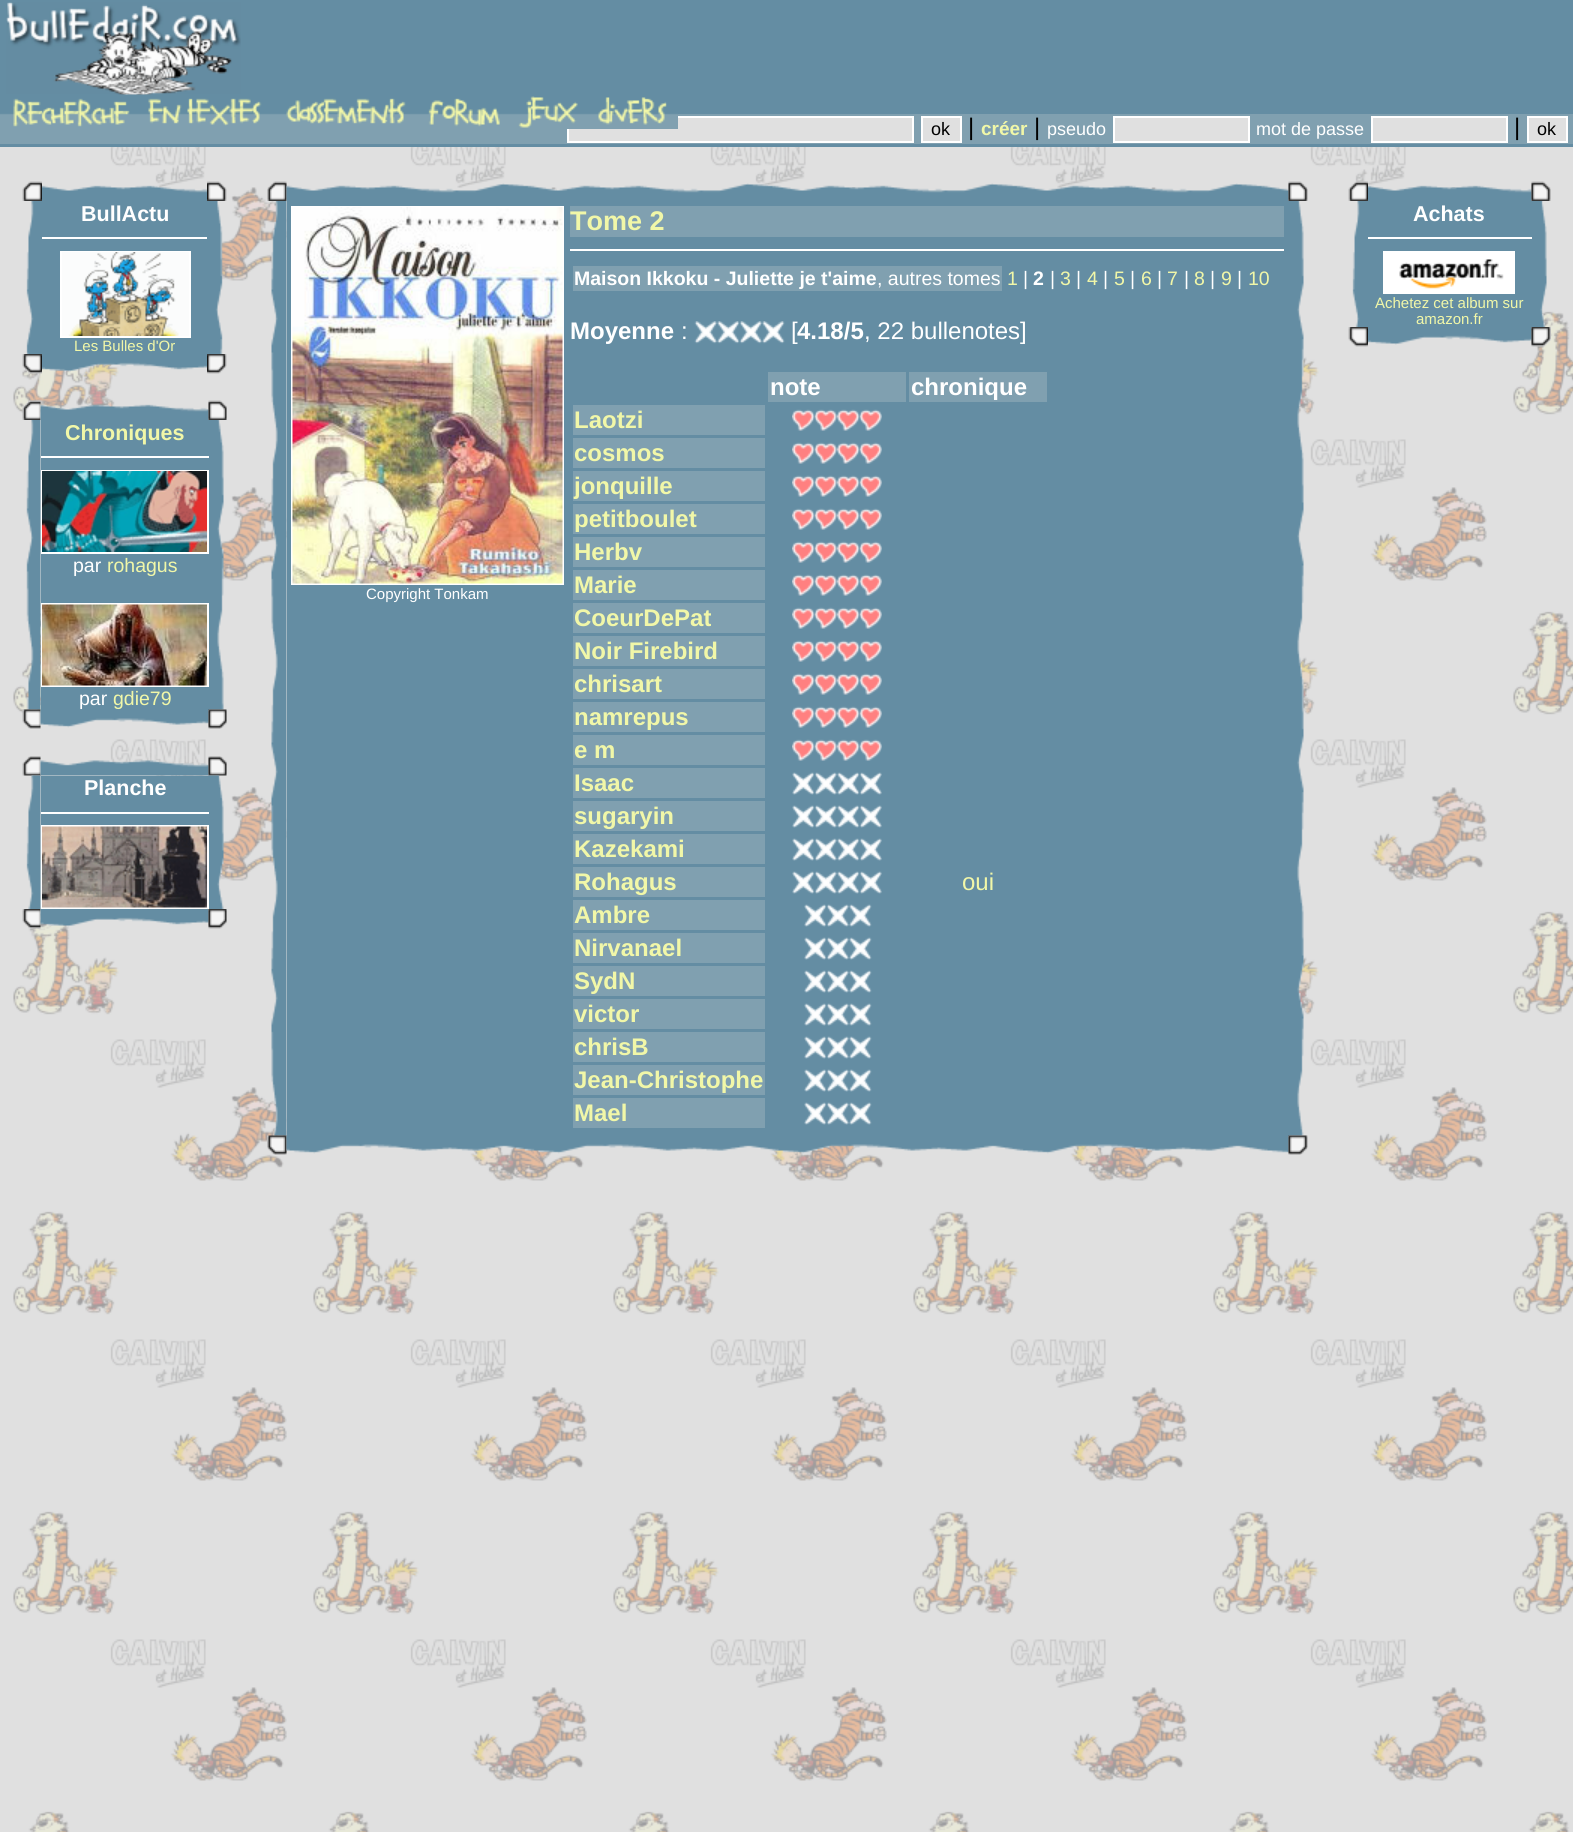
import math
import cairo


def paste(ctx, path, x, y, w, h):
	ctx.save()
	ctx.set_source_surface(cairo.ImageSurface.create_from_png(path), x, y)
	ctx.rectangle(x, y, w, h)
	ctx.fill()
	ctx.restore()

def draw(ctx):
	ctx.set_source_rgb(0.878, 0.878, 0.878)
	ctx.paint()
	paste(ctx, 'media/1.png', 13, 147, 1560, 1685)
	ctx.set_source_rgb(0.392, 0.553, 0.639)
	ctx.rectangle(0, 0, 1573, 111)
	ctx.fill()
	paste(ctx, 'media/2.png', 6, 2, 235, 93)
	ctx.set_source_rgb(0.502, 0.627, 0.69)
	ctx.rectangle(0, 114, 1573, 30)
	ctx.fill()
	paste(ctx, 'media/3.png', 0, 94, 138, 33)
	paste(ctx, 'media/4.png', 138, 94, 135, 32)
	paste(ctx, 'media/5.png', 273, 98, 144, 26)
	paste(ctx, 'media/6.png', 417, 98, 93, 29)
	ctx.set_source_rgb(0.878, 0.878, 0.878)
	ctx.rectangle(568, 117, 345, 25)
	ctx.fill_preserve()
	ctx.set_source_rgb(1, 1, 1)
	ctx.stroke()
	paste(ctx, 'media/7.png', 510, 96, 78, 33)
	paste(ctx, 'media/8.png', 588, 97, 90, 32)
	ctx.set_source_rgb(0.392, 0.553, 0.639)
	ctx.rectangle(678, 111, 895, 3)
	ctx.fill()
	ctx.rectangle(0, 144, 1573, 3)
	ctx.fill()
	ctx.set_source_rgb(0.878, 0.878, 0.878)
	ctx.rectangle(922, 117, 39, 25)
	ctx.fill_preserve()
	ctx.set_source_rgb(1, 1, 1)
	ctx.stroke()
	ctx.select_font_face('Liberation Sans')
	ctx.set_font_size(18)
	ctx.set_source_rgb(0, 0, 0)
	ctx.move_to(931, 135)
	ctx.show_text('ok')
	ctx.set_font_size(24)
	ctx.move_to(968, 135)
	ctx.show_text('|')
	ctx.select_font_face('Liberation Sans', cairo.FONT_SLANT_NORMAL, cairo.FONT_WEIGHT_BOLD)
	ctx.set_font_size(19)
	ctx.set_source_rgb(0.945, 0.965, 0.659)
	ctx.move_to(981, 135)
	ctx.show_text('créer')
	ctx.select_font_face('Liberation Sans')
	ctx.set_font_size(24)
	ctx.set_source_rgb(0, 0, 0)
	ctx.move_to(1034, 135)
	ctx.show_text('|')
	ctx.set_font_size(18)
	ctx.set_source_rgb(1, 1, 1)
	ctx.move_to(1047, 135)
	ctx.show_text('pseudo')
	ctx.set_source_rgb(0.878, 0.878, 0.878)
	ctx.rectangle(1114, 117, 135, 25)
	ctx.fill_preserve()
	ctx.set_source_rgb(1, 1, 1)
	ctx.stroke()
	ctx.move_to(1256, 135)
	ctx.show_text('mot de passe')
	ctx.set_source_rgb(0.878, 0.878, 0.878)
	ctx.rectangle(1372, 117, 135, 25)
	ctx.fill_preserve()
	ctx.set_source_rgb(1, 1, 1)
	ctx.stroke()
	ctx.set_font_size(24)
	ctx.set_source_rgb(0, 0, 0)
	ctx.move_to(1514, 135)
	ctx.show_text('|')
	ctx.set_source_rgb(0.878, 0.878, 0.878)
	ctx.rectangle(1528, 117, 39, 25)
	ctx.fill_preserve()
	ctx.set_source_rgb(1, 1, 1)
	ctx.stroke()
	ctx.set_font_size(18)
	ctx.set_source_rgb(0, 0, 0)
	ctx.move_to(1537, 135)
	ctx.show_text('ok')
	paste(ctx, 'media/9.png', 22, 181, 20, 20)
	paste(ctx, 'media/10.png', 42, 185, 165, 16)
	paste(ctx, 'media/11.png', 207, 181, 20, 20)
	paste(ctx, 'media/12.png', 26, 201, 16, 153)
	ctx.set_source_rgb(0.392, 0.553, 0.639)
	ctx.rectangle(42, 201, 165, 153)
	ctx.fill()
	ctx.select_font_face('Liberation Sans', cairo.FONT_SLANT_NORMAL, cairo.FONT_WEIGHT_BOLD)
	ctx.set_font_size(21.5)
	ctx.set_source_rgb(1, 1, 1)
	ctx.move_to(81, 221)
	ctx.show_text('BullActu')
	ctx.rectangle(42, 237, 165, 2)
	ctx.fill()
	ctx.rectangle(61, 252, 129, 85)
	ctx.stroke()
	paste(ctx, 'media/13.png', 62, 252, 127, 84)
	ctx.select_font_face('Liberation Sans')
	ctx.set_font_size(15)
	ctx.set_source_rgb(0.945, 0.965, 0.659)
	ctx.move_to(74, 351)
	ctx.show_text('Les Bulles d\'Or')
	paste(ctx, 'media/14.png', 207, 201, 16, 153)
	paste(ctx, 'media/15.png', 22, 354, 20, 20)
	paste(ctx, 'media/16.png', 42, 354, 165, 18)
	paste(ctx, 'media/17.png', 207, 354, 20, 20)
	paste(ctx, 'media/18.png', 22, 400, 19, 20)
	paste(ctx, 'media/19.png', 40, 404, 169, 16)
	paste(ctx, 'media/20.png', 208, 400, 19, 20)
	paste(ctx, 'media/21.png', 26, 420, 15, 290)
	ctx.set_source_rgb(0.392, 0.553, 0.639)
	ctx.rectangle(41, 420, 168, 290)
	ctx.fill()
	ctx.select_font_face('Liberation Sans', cairo.FONT_SLANT_NORMAL, cairo.FONT_WEIGHT_BOLD)
	ctx.set_font_size(21.5)
	ctx.set_source_rgb(0.945, 0.965, 0.659)
	ctx.move_to(65, 440)
	ctx.show_text('Chroniques')
	ctx.set_source_rgb(1, 1, 1)
	ctx.rectangle(41, 456, 168, 2)
	ctx.fill()
	ctx.rectangle(42, 471, 166, 82)
	ctx.stroke()
	paste(ctx, 'media/22.png', 42, 471, 165, 81)
	ctx.select_font_face('Liberation Sans')
	ctx.set_font_size(19.5)
	ctx.move_to(73, 572)
	ctx.show_text('par')
	ctx.set_source_rgb(0.945, 0.965, 0.659)
	ctx.move_to(107, 572)
	ctx.show_text('rohagus')
	ctx.rectangle(42, 604, 166, 82)
	ctx.set_source_rgb(1, 1, 1)
	ctx.stroke()
	paste(ctx, 'media/23.png', 42, 604, 165, 82)
	paste(ctx, 'media/25.png', 22, 709, 19, 20)
	paste(ctx, 'media/26.png', 40, 709, 169, 19)
	ctx.move_to(79, 705)
	ctx.show_text('par')
	ctx.set_source_rgb(0.945, 0.965, 0.659)
	ctx.move_to(113, 705)
	ctx.show_text('gdie79')
	paste(ctx, 'media/24.png', 209, 420, 15, 290)
	paste(ctx, 'media/27.png', 208, 709, 19, 20)
	paste(ctx, 'media/28.png', 22, 756, 19, 20)
	paste(ctx, 'media/29.png', 40, 760, 169, 16)
	paste(ctx, 'media/30.png', 208, 756, 19, 20)
	paste(ctx, 'media/31.png', 26, 775, 15, 134)
	ctx.set_source_rgb(0.392, 0.553, 0.639)
	ctx.rectangle(41, 776, 168, 49)
	ctx.fill()
	ctx.select_font_face('Liberation Sans', cairo.FONT_SLANT_NORMAL, cairo.FONT_WEIGHT_BOLD)
	ctx.set_font_size(21.5)
	ctx.set_source_rgb(1, 1, 1)
	ctx.move_to(84, 795)
	ctx.show_text('Planche')
	paste(ctx, 'media/33.png', 208, 775, 16, 134)
	ctx.rectangle(41, 812, 168, 2)
	ctx.fill()
	ctx.rectangle(42, 826, 166, 82)
	ctx.stroke()
	paste(ctx, 'media/32.png', 42, 826, 165, 82)
	paste(ctx, 'media/34.png', 22, 909, 19, 20)
	paste(ctx, 'media/35.png', 40, 909, 169, 18)
	paste(ctx, 'media/36.png', 208, 909, 19, 20)
	paste(ctx, 'media/37.png', 267, 181, 20, 20)
	paste(ctx, 'media/38.png', 286, 183, 1003, 18)
	paste(ctx, 'media/39.png', 1288, 181, 20, 20)
	paste(ctx, 'media/40.png', 271, 201, 16, 935)
	ctx.set_source_rgb(0.392, 0.553, 0.639)
	ctx.rectangle(287, 201, 1002, 935)
	ctx.fill()
	ctx.rectangle(292, 207, 271, 377)
	ctx.set_source_rgb(1, 1, 1)
	ctx.stroke()
	paste(ctx, 'media/41.png', 292, 207, 271, 377)
	ctx.select_font_face('Liberation Sans')
	ctx.set_font_size(15)
	ctx.move_to(366, 599)
	ctx.show_text('Copyright Tonkam')
	ctx.set_source_rgb(0.502, 0.627, 0.69)
	ctx.rectangle(570, 206, 714, 31)
	ctx.fill()
	ctx.select_font_face('Liberation Sans', cairo.FONT_SLANT_NORMAL, cairo.FONT_WEIGHT_BOLD)
	ctx.set_font_size(27)
	ctx.set_source_rgb(0.945, 0.965, 0.659)
	ctx.move_to(570, 230)
	ctx.show_text('Tome 2')
	ctx.set_source_rgb(1, 1, 1)
	ctx.rectangle(570, 249, 714, 2)
	ctx.fill()
	ctx.set_source_rgb(0.502, 0.627, 0.69)
	ctx.rectangle(573, 266, 429, 25)
	ctx.fill()
	ctx.set_font_size(19.5)
	ctx.set_source_rgb(1, 1, 1)
	ctx.move_to(574, 285)
	ctx.show_text('Maison Ikkoku - Juliette je t\'aime')
	ctx.select_font_face('Liberation Sans')
	ctx.move_to(877, 285)
	ctx.show_text(', autres tomes')
	ctx.set_source_rgb(0.945, 0.965, 0.659)
	ctx.move_to(1007, 285)
	ctx.show_text('1')
	ctx.set_source_rgb(1, 1, 1)
	ctx.move_to(1023, 285)
	ctx.show_text('|')
	ctx.select_font_face('Liberation Sans', cairo.FONT_SLANT_NORMAL, cairo.FONT_WEIGHT_BOLD)
	ctx.move_to(1033, 285)
	ctx.show_text('2')
	ctx.select_font_face('Liberation Sans')
	ctx.move_to(1050, 285)
	ctx.show_text('|')
	ctx.set_source_rgb(0.945, 0.965, 0.659)
	ctx.move_to(1060, 285)
	ctx.show_text('3')
	ctx.set_source_rgb(1, 1, 1)
	ctx.move_to(1076, 285)
	ctx.show_text('|')
	ctx.set_source_rgb(0.945, 0.965, 0.659)
	ctx.move_to(1087, 285)
	ctx.show_text('4')
	ctx.set_source_rgb(1, 1, 1)
	ctx.move_to(1103, 285)
	ctx.show_text('|')
	ctx.set_source_rgb(0.945, 0.965, 0.659)
	ctx.move_to(1114, 285)
	ctx.show_text('5')
	ctx.set_source_rgb(1, 1, 1)
	ctx.move_to(1130, 285)
	ctx.show_text('|')
	ctx.set_source_rgb(0.945, 0.965, 0.659)
	ctx.move_to(1141, 285)
	ctx.show_text('6')
	ctx.set_source_rgb(1, 1, 1)
	ctx.move_to(1157, 285)
	ctx.show_text('|')
	ctx.set_source_rgb(0.945, 0.965, 0.659)
	ctx.move_to(1167, 285)
	ctx.show_text('7')
	ctx.set_source_rgb(1, 1, 1)
	ctx.move_to(1184, 285)
	ctx.show_text('|')
	ctx.set_source_rgb(0.945, 0.965, 0.659)
	ctx.move_to(1194, 285)
	ctx.show_text('8')
	ctx.set_source_rgb(1, 1, 1)
	ctx.move_to(1210, 285)
	ctx.show_text('|')
	ctx.set_source_rgb(0.945, 0.965, 0.659)
	ctx.move_to(1221, 285)
	ctx.show_text('9')
	ctx.set_source_rgb(1, 1, 1)
	ctx.move_to(1237, 285)
	ctx.show_text('|')
	ctx.set_source_rgb(0.945, 0.965, 0.659)
	ctx.move_to(1248, 285)
	ctx.show_text('10')
	ctx.select_font_face('Liberation Sans', cairo.FONT_SLANT_NORMAL, cairo.FONT_WEIGHT_BOLD)
	ctx.set_font_size(24)
	ctx.set_source_rgb(1, 1, 1)
	ctx.move_to(570, 339)
	ctx.show_text('Moyenne')
	ctx.select_font_face('Liberation Sans')
	ctx.move_to(681, 339)
	ctx.show_text(':')
	paste(ctx, 'media/42.png', 694, 321, 23, 23)
	paste(ctx, 'media/43.png', 717, 321, 23, 23)
	paste(ctx, 'media/44.png', 740, 321, 22, 23)
	paste(ctx, 'media/45.png', 762, 321, 23, 23)
	ctx.move_to(791, 339)
	ctx.show_text('[')
	ctx.select_font_face('Liberation Sans', cairo.FONT_SLANT_NORMAL, cairo.FONT_WEIGHT_BOLD)
	ctx.move_to(797, 339)
	ctx.show_text('4.18/5')
	ctx.select_font_face('Liberation Sans')
	ctx.move_to(864, 339)
	ctx.show_text(', 22 bullenotes]')
	ctx.set_source_rgb(0.502, 0.627, 0.69)
	ctx.rectangle(768, 372, 138, 30)
	ctx.fill()
	ctx.select_font_face('Liberation Sans', cairo.FONT_SLANT_NORMAL, cairo.FONT_WEIGHT_BOLD)
	ctx.set_source_rgb(1, 1, 1)
	ctx.move_to(770, 395)
	ctx.show_text('note')
	ctx.set_source_rgb(0.502, 0.627, 0.69)
	ctx.rectangle(909, 372, 138, 30)
	ctx.fill()
	ctx.set_source_rgb(1, 1, 1)
	ctx.move_to(911, 395)
	ctx.show_text('chronique')
	ctx.set_source_rgb(0.502, 0.627, 0.69)
	ctx.rectangle(573, 405, 192, 30)
	ctx.fill()
	ctx.set_source_rgb(0.945, 0.965, 0.659)
	ctx.move_to(574, 428)
	ctx.show_text('Laotzi')
	paste(ctx, 'media/46.png', 792, 409, 23, 22)
	paste(ctx, 'media/47.png', 814, 409, 23, 22)
	paste(ctx, 'media/46.png', 837, 409, 23, 22)
	paste(ctx, 'media/47.png', 859, 409, 23, 22)
	ctx.set_source_rgb(0.502, 0.627, 0.69)
	ctx.rectangle(573, 438, 192, 30)
	ctx.fill()
	ctx.set_source_rgb(0.945, 0.965, 0.659)
	ctx.move_to(574, 461)
	ctx.show_text('cosmos')
	paste(ctx, 'media/46.png', 792, 442, 23, 22)
	paste(ctx, 'media/47.png', 814, 442, 23, 22)
	paste(ctx, 'media/46.png', 837, 442, 23, 22)
	paste(ctx, 'media/47.png', 859, 442, 23, 22)
	ctx.set_source_rgb(0.502, 0.627, 0.69)
	ctx.rectangle(573, 471, 192, 30)
	ctx.fill()
	ctx.set_source_rgb(0.945, 0.965, 0.659)
	ctx.move_to(574, 494)
	ctx.show_text('jonquille')
	paste(ctx, 'media/46.png', 792, 475, 23, 22)
	paste(ctx, 'media/47.png', 814, 475, 23, 22)
	paste(ctx, 'media/46.png', 837, 475, 23, 22)
	paste(ctx, 'media/47.png', 859, 475, 23, 22)
	ctx.set_source_rgb(0.502, 0.627, 0.69)
	ctx.rectangle(573, 504, 192, 30)
	ctx.fill()
	ctx.set_source_rgb(0.945, 0.965, 0.659)
	ctx.move_to(574, 527)
	ctx.show_text('petitboulet')
	paste(ctx, 'media/46.png', 792, 508, 23, 22)
	paste(ctx, 'media/47.png', 814, 508, 23, 22)
	paste(ctx, 'media/46.png', 837, 508, 23, 22)
	paste(ctx, 'media/47.png', 859, 508, 23, 22)
	ctx.set_source_rgb(0.502, 0.627, 0.69)
	ctx.rectangle(573, 537, 192, 30)
	ctx.fill()
	ctx.set_source_rgb(0.945, 0.965, 0.659)
	ctx.move_to(574, 560)
	ctx.show_text('Herbv')
	paste(ctx, 'media/46.png', 792, 541, 23, 22)
	paste(ctx, 'media/47.png', 814, 541, 23, 22)
	paste(ctx, 'media/46.png', 837, 541, 23, 22)
	paste(ctx, 'media/47.png', 859, 541, 23, 22)
	ctx.set_source_rgb(0.502, 0.627, 0.69)
	ctx.rectangle(573, 570, 192, 30)
	ctx.fill()
	ctx.set_source_rgb(0.945, 0.965, 0.659)
	ctx.move_to(574, 593)
	ctx.show_text('Marie')
	paste(ctx, 'media/46.png', 792, 574, 23, 22)
	paste(ctx, 'media/47.png', 814, 574, 23, 22)
	paste(ctx, 'media/46.png', 837, 574, 23, 22)
	paste(ctx, 'media/47.png', 859, 574, 23, 22)
	ctx.set_source_rgb(0.502, 0.627, 0.69)
	ctx.rectangle(573, 603, 192, 30)
	ctx.fill()
	ctx.set_source_rgb(0.945, 0.965, 0.659)
	ctx.move_to(574, 626)
	ctx.show_text('CoeurDePat')
	paste(ctx, 'media/46.png', 792, 607, 23, 22)
	paste(ctx, 'media/47.png', 814, 607, 23, 22)
	paste(ctx, 'media/46.png', 837, 607, 23, 22)
	paste(ctx, 'media/47.png', 859, 607, 23, 22)
	ctx.set_source_rgb(0.502, 0.627, 0.69)
	ctx.rectangle(573, 636, 192, 30)
	ctx.fill()
	ctx.set_source_rgb(0.945, 0.965, 0.659)
	ctx.move_to(574, 659)
	ctx.show_text('Noir Firebird')
	paste(ctx, 'media/46.png', 792, 640, 23, 22)
	paste(ctx, 'media/47.png', 814, 640, 23, 22)
	paste(ctx, 'media/46.png', 837, 640, 23, 22)
	paste(ctx, 'media/47.png', 859, 640, 23, 22)
	ctx.set_source_rgb(0.502, 0.627, 0.69)
	ctx.rectangle(573, 669, 192, 30)
	ctx.fill()
	ctx.set_source_rgb(0.945, 0.965, 0.659)
	ctx.move_to(574, 692)
	ctx.show_text('chrisart')
	paste(ctx, 'media/46.png', 792, 673, 23, 22)
	paste(ctx, 'media/47.png', 814, 673, 23, 22)
	paste(ctx, 'media/46.png', 837, 673, 23, 22)
	paste(ctx, 'media/47.png', 859, 673, 23, 22)
	ctx.set_source_rgb(0.502, 0.627, 0.69)
	ctx.rectangle(573, 702, 192, 30)
	ctx.fill()
	ctx.set_source_rgb(0.945, 0.965, 0.659)
	ctx.move_to(574, 725)
	ctx.show_text('namrepus')
	paste(ctx, 'media/46.png', 792, 706, 23, 22)
	paste(ctx, 'media/47.png', 814, 706, 23, 22)
	paste(ctx, 'media/46.png', 837, 706, 23, 22)
	paste(ctx, 'media/47.png', 859, 706, 23, 22)
	ctx.set_source_rgb(0.502, 0.627, 0.69)
	ctx.rectangle(573, 735, 192, 30)
	ctx.fill()
	ctx.set_source_rgb(0.945, 0.965, 0.659)
	ctx.move_to(574, 758)
	ctx.show_text('e m')
	paste(ctx, 'media/46.png', 792, 739, 23, 22)
	paste(ctx, 'media/47.png', 814, 739, 23, 22)
	paste(ctx, 'media/46.png', 837, 739, 23, 22)
	paste(ctx, 'media/47.png', 859, 739, 23, 22)
	ctx.set_source_rgb(0.502, 0.627, 0.69)
	ctx.rectangle(573, 768, 192, 30)
	ctx.fill()
	ctx.set_source_rgb(0.945, 0.965, 0.659)
	ctx.move_to(574, 791)
	ctx.show_text('Isaac')
	paste(ctx, 'media/48.png', 792, 772, 23, 23)
	paste(ctx, 'media/49.png', 815, 772, 22, 23)
	paste(ctx, 'media/48.png', 837, 772, 23, 23)
	paste(ctx, 'media/49.png', 860, 772, 22, 23)
	ctx.set_source_rgb(0.502, 0.627, 0.69)
	ctx.rectangle(573, 801, 192, 30)
	ctx.fill()
	ctx.set_source_rgb(0.945, 0.965, 0.659)
	ctx.move_to(574, 824)
	ctx.show_text('sugaryin')
	paste(ctx, 'media/48.png', 792, 805, 23, 23)
	paste(ctx, 'media/49.png', 815, 805, 22, 23)
	paste(ctx, 'media/48.png', 837, 805, 23, 23)
	paste(ctx, 'media/49.png', 860, 805, 22, 23)
	ctx.set_source_rgb(0.502, 0.627, 0.69)
	ctx.rectangle(573, 834, 192, 30)
	ctx.fill()
	ctx.set_source_rgb(0.945, 0.965, 0.659)
	ctx.move_to(574, 857)
	ctx.show_text('Kazekami')
	paste(ctx, 'media/48.png', 792, 838, 23, 23)
	paste(ctx, 'media/49.png', 815, 838, 22, 23)
	paste(ctx, 'media/48.png', 837, 838, 23, 23)
	paste(ctx, 'media/49.png', 860, 838, 22, 23)
	ctx.set_source_rgb(0.502, 0.627, 0.69)
	ctx.rectangle(573, 867, 192, 30)
	ctx.fill()
	ctx.set_source_rgb(0.945, 0.965, 0.659)
	ctx.move_to(574, 890)
	ctx.show_text('Rohagus')
	paste(ctx, 'media/48.png', 792, 871, 23, 23)
	paste(ctx, 'media/49.png', 815, 871, 22, 23)
	paste(ctx, 'media/48.png', 837, 871, 23, 23)
	paste(ctx, 'media/49.png', 860, 871, 22, 23)
	ctx.select_font_face('Liberation Sans')
	ctx.move_to(962, 890)
	ctx.show_text('oui')
	ctx.set_source_rgb(0.502, 0.627, 0.69)
	ctx.rectangle(573, 900, 192, 30)
	ctx.fill()
	ctx.select_font_face('Liberation Sans', cairo.FONT_SLANT_NORMAL, cairo.FONT_WEIGHT_BOLD)
	ctx.set_source_rgb(0.945, 0.965, 0.659)
	ctx.move_to(574, 923)
	ctx.show_text('Ambre')
	paste(ctx, 'media/48.png', 804, 904, 23, 23)
	paste(ctx, 'media/49.png', 827, 904, 22, 23)
	paste(ctx, 'media/48.png', 849, 904, 23, 23)
	ctx.set_source_rgb(0.502, 0.627, 0.69)
	ctx.rectangle(573, 933, 192, 30)
	ctx.fill()
	ctx.set_source_rgb(0.945, 0.965, 0.659)
	ctx.move_to(574, 956)
	ctx.show_text('Nirvanael')
	paste(ctx, 'media/48.png', 804, 937, 23, 23)
	paste(ctx, 'media/49.png', 827, 937, 22, 23)
	paste(ctx, 'media/48.png', 849, 937, 23, 23)
	ctx.set_source_rgb(0.502, 0.627, 0.69)
	ctx.rectangle(573, 966, 192, 30)
	ctx.fill()
	ctx.set_source_rgb(0.945, 0.965, 0.659)
	ctx.move_to(574, 989)
	ctx.show_text('SydN')
	paste(ctx, 'media/48.png', 804, 970, 23, 23)
	paste(ctx, 'media/49.png', 827, 970, 22, 23)
	paste(ctx, 'media/48.png', 849, 970, 23, 23)
	ctx.set_source_rgb(0.502, 0.627, 0.69)
	ctx.rectangle(573, 999, 192, 30)
	ctx.fill()
	ctx.set_source_rgb(0.945, 0.965, 0.659)
	ctx.move_to(574, 1022)
	ctx.show_text('victor')
	paste(ctx, 'media/48.png', 804, 1003, 23, 23)
	paste(ctx, 'media/49.png', 827, 1003, 22, 23)
	paste(ctx, 'media/48.png', 849, 1003, 23, 23)
	ctx.set_source_rgb(0.502, 0.627, 0.69)
	ctx.rectangle(573, 1032, 192, 30)
	ctx.fill()
	ctx.set_source_rgb(0.945, 0.965, 0.659)
	ctx.move_to(574, 1055)
	ctx.show_text('chrisB')
	paste(ctx, 'media/48.png', 804, 1036, 23, 23)
	paste(ctx, 'media/49.png', 827, 1036, 22, 23)
	paste(ctx, 'media/48.png', 849, 1036, 23, 23)
	ctx.set_source_rgb(0.502, 0.627, 0.69)
	ctx.rectangle(573, 1065, 192, 30)
	ctx.fill()
	ctx.set_source_rgb(0.945, 0.965, 0.659)
	ctx.move_to(574, 1088)
	ctx.show_text('Jean-Christophe')
	paste(ctx, 'media/48.png', 804, 1069, 23, 23)
	paste(ctx, 'media/49.png', 827, 1069, 22, 23)
	paste(ctx, 'media/48.png', 849, 1069, 23, 23)
	ctx.set_source_rgb(0.502, 0.627, 0.69)
	ctx.rectangle(573, 1098, 192, 30)
	ctx.fill()
	ctx.set_source_rgb(0.945, 0.965, 0.659)
	ctx.move_to(574, 1121)
	ctx.show_text('Mael')
	paste(ctx, 'media/48.png', 804, 1102, 23, 23)
	paste(ctx, 'media/49.png', 827, 1102, 22, 23)
	paste(ctx, 'media/48.png', 849, 1102, 23, 23)
	paste(ctx, 'media/50.png', 1289, 201, 15, 935)
	paste(ctx, 'media/51.png', 267, 1135, 20, 20)
	paste(ctx, 'media/52.png', 286, 1135, 1003, 19)
	paste(ctx, 'media/53.png', 1288, 1135, 20, 20)
	paste(ctx, 'media/54.png', 1348, 181, 20, 20)
	paste(ctx, 'media/55.png', 1368, 185, 164, 16)
	paste(ctx, 'media/56.png', 1531, 181, 20, 20)
	paste(ctx, 'media/57.png', 1352, 201, 16, 126)
	ctx.set_source_rgb(0.392, 0.553, 0.639)
	ctx.rectangle(1368, 201, 164, 126)
	ctx.fill()
	ctx.set_font_size(21.5)
	ctx.set_source_rgb(1, 1, 1)
	ctx.move_to(1413, 221)
	ctx.show_text('Achats')
	ctx.rectangle(1368, 237, 164, 2)
	ctx.fill()
	ctx.rectangle(1384, 252, 130, 41)
	ctx.stroke()
	paste(ctx, 'media/58.png', 1385, 253, 128, 39)
	ctx.select_font_face('Liberation Sans')
	ctx.set_font_size(15)
	ctx.set_source_rgb(0.945, 0.965, 0.659)
	ctx.move_to(1375, 308)
	ctx.show_text('Achetez cet album sur')
	ctx.move_to(1416, 324)
	ctx.show_text('amazon.fr')
	paste(ctx, 'media/59.png', 1532, 201, 15, 126)
	paste(ctx, 'media/60.png', 1348, 327, 20, 20)
	paste(ctx, 'media/61.png', 1368, 327, 164, 18)
	paste(ctx, 'media/62.png', 1531, 327, 20, 20)


surface = cairo.ImageSurface(cairo.FORMAT_RGB24, 1573, 1832)
ctx = cairo.Context(surface)
options = cairo.FontOptions()
options.set_hint_metrics(cairo.HINT_METRICS_OFF)
options.set_hint_style(cairo.HINT_STYLE_NONE)
ctx.set_font_options(options)
ctx.set_miter_limit(4)
draw(ctx)
surface.write_to_png('image.png')
